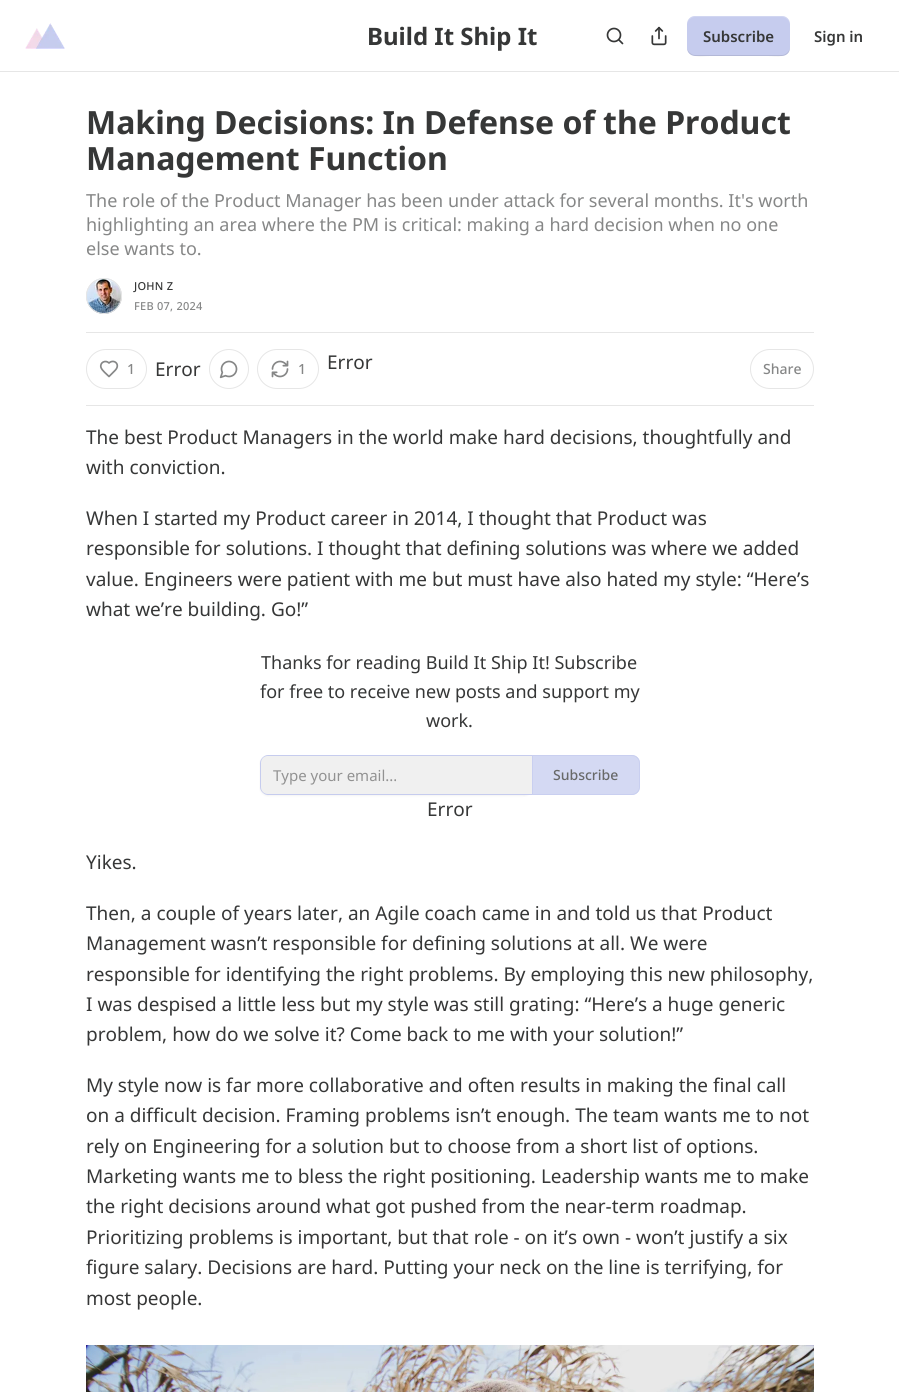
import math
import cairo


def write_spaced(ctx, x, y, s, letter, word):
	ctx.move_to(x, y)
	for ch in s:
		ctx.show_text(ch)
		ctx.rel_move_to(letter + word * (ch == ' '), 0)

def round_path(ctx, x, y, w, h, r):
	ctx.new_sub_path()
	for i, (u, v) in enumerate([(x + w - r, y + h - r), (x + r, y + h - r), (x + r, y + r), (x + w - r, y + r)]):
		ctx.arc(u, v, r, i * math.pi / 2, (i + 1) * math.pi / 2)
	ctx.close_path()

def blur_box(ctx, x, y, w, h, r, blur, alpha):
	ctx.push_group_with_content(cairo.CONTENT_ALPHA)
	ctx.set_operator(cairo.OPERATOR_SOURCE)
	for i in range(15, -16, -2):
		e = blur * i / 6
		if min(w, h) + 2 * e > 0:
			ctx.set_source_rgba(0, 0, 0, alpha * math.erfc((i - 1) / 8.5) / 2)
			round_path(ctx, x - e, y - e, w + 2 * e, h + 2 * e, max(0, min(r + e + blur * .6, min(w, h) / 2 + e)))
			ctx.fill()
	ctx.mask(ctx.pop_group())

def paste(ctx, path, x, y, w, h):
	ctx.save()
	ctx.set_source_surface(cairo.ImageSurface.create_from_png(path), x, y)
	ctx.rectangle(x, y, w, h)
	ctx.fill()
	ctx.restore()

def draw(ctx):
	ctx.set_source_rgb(1, 1, 1)
	ctx.paint()
	ctx.set_source_rgb(0.902, 0.902, 0.902)
	ctx.rectangle(0, 71, 899, 1)
	ctx.fill()
	paste(ctx, 'media/1.png', 25, 23, 40, 26)
	ctx.select_font_face('Noto Sans', cairo.FONT_SLANT_NORMAL, cairo.FONT_WEIGHT_BOLD)
	ctx.set_font_size(24)
	ctx.set_source_rgb(0.212, 0.216, 0.216)
	ctx.move_to(367, 45)
	ctx.show_text('Build It Ship It')
	ctx.new_path()
	ctx.arc(614, 35, 6.5, 0, 2 * math.pi)
	ctx.set_line_width(1.7)
	ctx.stroke()
	ctx.new_path()
	ctx.move_to(622.5, 43.5)
	ctx.line_to(619, 40)
	ctx.set_line_cap(cairo.LINE_CAP_ROUND)
	ctx.set_line_join(cairo.LINE_JOIN_ROUND)
	ctx.stroke()
	paste(ctx, 'media/2.png', 651, 26, 16, 20)
	ctx.set_source_rgb(0.776, 0.8, 0.933)
	round_path(ctx, 687, 16, 103, 40, 8)
	ctx.fill()
	ctx.set_source_rgba(0, 0, 0, 0.1)
	ctx.new_path()
	ctx.move_to(687, 47)
	ctx.curve_to(687, 59, 701, 56, 710, 56)
	ctx.line_to(768, 56)
	ctx.curve_to(776, 56, 790, 59, 790, 47)
	ctx.curve_to(790, 51, 786, 55, 782, 55)
	ctx.line_to(695, 55)
	ctx.curve_to(691, 55, 687, 51, 687, 47)
	ctx.close_path()
	ctx.fill()
	ctx.set_source_rgba(1, 1, 1, 0.2)
	ctx.new_path()
	ctx.move_to(695, 17)
	ctx.line_to(782, 17)
	ctx.curve_to(786, 17, 790, 21, 790, 25)
	ctx.curve_to(790, 13, 776, 16, 768, 16)
	ctx.line_to(710, 16)
	ctx.curve_to(701, 16, 687, 13, 687, 25)
	ctx.curve_to(687, 21, 691, 17, 695, 17)
	ctx.close_path()
	ctx.fill()
	ctx.select_font_face('Noto Sans SemiBold')
	ctx.set_font_size(15)
	ctx.set_source_rgb(0.212, 0.216, 0.216)
	ctx.move_to(703, 42)
	ctx.show_text('Subscribe')
	ctx.move_to(814, 42)
	ctx.show_text('Sign in')
	ctx.select_font_face('Noto Sans', cairo.FONT_SLANT_NORMAL, cairo.FONT_WEIGHT_BOLD)
	ctx.set_font_size(32)
	ctx.move_to(86, 134)
	ctx.show_text('Making Decisions: In Defense of the Product')
	ctx.move_to(86, 170)
	ctx.show_text('Management Function')
	ctx.select_font_face('Noto Sans')
	ctx.set_font_size(18)
	ctx.set_source_rgb(0.525, 0.529, 0.529)
	for x, y, s in [
		(86, 207, 'The role of the Product Manager has been under attack for several months. It\'s worth'),
		(86, 231, 'highlighting an area where the PM is critical: making a hard decision when no one'),
		(86, 255, 'else wants to.'),
	]:
		ctx.move_to(x, y)
		ctx.show_text(s)
	ctx.new_path()
	ctx.arc(104, 296, 17.5, 0, 2 * math.pi)
	ctx.set_source_rgb(0.902, 0.902, 0.902)
	ctx.set_line_width(1)
	ctx.set_line_cap(cairo.LINE_CAP_BUTT)
	ctx.set_line_join(cairo.LINE_JOIN_MITER)
	ctx.stroke()
	paste(ctx, 'media/3.png', 86, 278, 36, 36)
	ctx.arc(104, 296, 17.5, 0, 2 * math.pi)
	ctx.stroke()
	ctx.select_font_face('Noto Sans Medium')
	ctx.set_font_size(11)
	ctx.set_source_rgb(0.212, 0.216, 0.216)
	write_spaced(ctx, 134, 290, 'JOHN Z', 0.25, 0)
	ctx.set_source_rgb(0.525, 0.529, 0.529)
	write_spaced(ctx, 134, 310, 'FEB 07, 2024', 0.25, 0)
	ctx.set_source_rgb(0.902, 0.902, 0.902)
	ctx.rectangle(86, 332, 728, 1)
	ctx.fill()
	ctx.rectangle(86, 405, 728, 1)
	ctx.fill()
	round_path(ctx, 86.5, 349.5, 60, 39, 19.5)
	ctx.stroke()
	ctx.new_path()
	ctx.move_to(115, 370.5)
	ctx.curve_to(121, 364.5, 114, 358.5, 109, 363)
	ctx.curve_to(105.5, 359.5, 99.5, 362.5, 101, 367.5)
	ctx.curve_to(102, 370.5, 107, 374.5, 109, 376.5)
	ctx.close_path()
	ctx.set_source_rgb(0.525, 0.529, 0.529)
	ctx.set_line_width(1.7)
	ctx.set_line_cap(cairo.LINE_CAP_ROUND)
	ctx.set_line_join(cairo.LINE_JOIN_ROUND)
	ctx.stroke()
	ctx.set_font_size(14)
	ctx.move_to(127, 374)
	ctx.show_text('1')
	ctx.select_font_face('Noto Sans')
	ctx.set_font_size(19)
	ctx.set_source_rgb(0.212, 0.216, 0.216)
	ctx.move_to(155, 376)
	ctx.show_text('Error')
	ctx.new_path()
	ctx.arc(229, 369, 19.5, 0, 2 * math.pi)
	ctx.set_source_rgb(0.902, 0.902, 0.902)
	ctx.set_line_width(1)
	ctx.set_line_cap(cairo.LINE_CAP_BUTT)
	ctx.set_line_join(cairo.LINE_JOIN_MITER)
	ctx.stroke()
	paste(ctx, 'media/4.png', 219, 360, 19, 19)
	round_path(ctx, 257.5, 349.5, 61, 39, 19.5)
	ctx.stroke()
	paste(ctx, 'media/5.png', 271, 360, 18, 18)
	ctx.select_font_face('Noto Sans Medium')
	ctx.set_font_size(14)
	ctx.set_source_rgb(0.525, 0.529, 0.529)
	ctx.move_to(298, 374)
	ctx.show_text('1')
	ctx.select_font_face('Noto Sans')
	ctx.set_font_size(19)
	ctx.set_source_rgb(0.212, 0.216, 0.216)
	ctx.move_to(327, 369)
	ctx.show_text('Error')
	round_path(ctx, 750.5, 349.5, 63, 39, 19.5)
	ctx.set_source_rgb(0.902, 0.902, 0.902)
	ctx.stroke()
	ctx.select_font_face('Noto Sans Medium')
	ctx.set_font_size(14)
	ctx.set_source_rgb(0.525, 0.529, 0.529)
	ctx.move_to(763, 374)
	ctx.show_text('Share')
	ctx.select_font_face('Noto Sans')
	ctx.set_font_size(19)
	ctx.set_source_rgb(0.212, 0.216, 0.216)
	for x, y, s in [
		(86, 444, 'The best Product Managers in the world make hard decisions, thoughtfully and'),
		(86, 474, 'with conviction.'),
		(86, 525, 'When I started my Product career in 2014, I thought that Product was'),
		(86, 555, 'responsible for solutions. I thought that defining solutions was where we added'),
		(86, 586, 'value. Engineers were patient with me but must have also hated my style: “Here’s'),
		(86, 616, 'what we’re building. Go!”'),
	]:
		ctx.move_to(x, y)
		ctx.show_text(s)
	ctx.set_font_size(18)
	for x, y, s in [
		(261, 669, 'Thanks for reading Build It Ship It! Subscribe'),
		(260, 698, 'for free to receive new posts and support my'),
		(426, 727, 'work.'),
	]:
		ctx.move_to(x, y)
		ctx.show_text(s)
	ctx.set_source_rgb(0, 0, 0)
	blur_box(ctx, 260, 756, 272, 40, 8, 1, 0.05)
	ctx.set_source_rgb(0.941, 0.941, 0.941)
	ctx.new_path()
	ctx.move_to(268, 756)
	ctx.line_to(532, 756)
	ctx.line_to(532, 794)
	ctx.line_to(268, 794)
	ctx.curve_to(264, 794, 261, 791, 261, 787)
	ctx.line_to(261, 763)
	ctx.curve_to(261, 759, 264, 756, 268, 756)
	ctx.close_path()
	ctx.fill()
	ctx.set_source_rgb(0.776, 0.8, 0.933)
	ctx.set_fill_rule(cairo.FILL_RULE_EVEN_ODD)
	ctx.new_path()
	ctx.move_to(268, 755)
	ctx.line_to(532, 755)
	ctx.line_to(532, 795)
	ctx.line_to(268, 795)
	ctx.curve_to(264, 795, 260, 791, 260, 787)
	ctx.line_to(260, 763)
	ctx.curve_to(260, 759, 264, 755, 268, 755)
	ctx.close_path()
	ctx.move_to(268, 756)
	ctx.line_to(532, 756)
	ctx.line_to(532, 794)
	ctx.line_to(268, 794)
	ctx.curve_to(264, 794, 261, 791, 261, 787)
	ctx.line_to(261, 763)
	ctx.curve_to(261, 759, 264, 756, 268, 756)
	ctx.close_path()
	ctx.fill()
	ctx.set_font_size(15)
	ctx.set_source_rgb(0.573, 0.573, 0.573)
	ctx.move_to(273, 781)
	ctx.show_text('Type your email...')
	ctx.set_source_rgba(0.776, 0.8, 0.933, 0.75)
	ctx.new_path()
	ctx.move_to(532, 755)
	ctx.line_to(632, 755)
	ctx.curve_to(636.5, 755, 640, 758.5, 640, 763)
	ctx.line_to(640, 787)
	ctx.curve_to(640, 791.5, 636.5, 795, 632, 795)
	ctx.line_to(532, 795)
	ctx.close_path()
	ctx.fill()
	ctx.new_path()
	ctx.move_to(532.5, 755.5)
	ctx.line_to(632, 755.5)
	ctx.curve_to(636, 755.5, 639.5, 759, 639.5, 763)
	ctx.line_to(639.5, 787)
	ctx.curve_to(639.5, 791, 636, 794.5, 632, 794.5)
	ctx.line_to(532.5, 794.5)
	ctx.close_path()
	ctx.stroke()
	ctx.select_font_face('Noto Sans Medium')
	ctx.set_font_size(14)
	ctx.set_source_rgb(0.408, 0.412, 0.412)
	ctx.move_to(553, 780)
	ctx.show_text('Subscribe')
	ctx.select_font_face('Noto Sans')
	ctx.set_font_size(19)
	ctx.set_source_rgb(0.212, 0.216, 0.216)
	for x, y, s in [
		(427, 816, 'Error'),
		(86, 869, 'Yikes.'),
		(86, 920, 'Then, a couple of years later, an Agile coach came in and told us that Product'),
		(86, 950, 'Management wasn’t responsible for defining solutions at all. We were'),
		(86, 981, 'responsible for identifying the right problems. By employing this new philosophy,'),
		(86, 1011, 'I was despised a little less but my style was still grating: “Here’s a huge generic'),
		(86, 1041, 'problem, how do we solve it? Come back to me with your solution!”'),
		(86, 1092, 'My style now is far more collaborative and often results in making the final call'),
		(86, 1122, 'on a difficult decision. Framing problems isn’t enough. The team wants me to not'),
		(86, 1153, 'rely on Engineering for a solution but to choose from a short list of options.'),
		(86, 1183, 'Marketing wants me to bless the right positioning. Leadership wants me to make'),
		(86, 1213, 'the right decisions around what got pushed from the near-term roadmap.'),
		(86, 1244, 'Prioritizing problems is important, but that role - on it’s own - won’t justify a six'),
		(86, 1274, 'figure salary. Decisions are hard. Putting your neck on the line is terrifying, for'),
		(86, 1305, 'most people.'),
	]:
		ctx.move_to(x, y)
		ctx.show_text(s)
	paste(ctx, 'media/6.png', 86, 1345, 728, 47)


surface = cairo.ImageSurface(cairo.FORMAT_RGB24, 899, 1392)
ctx = cairo.Context(surface)
options = cairo.FontOptions()
options.set_hint_metrics(cairo.HINT_METRICS_OFF)
options.set_hint_style(cairo.HINT_STYLE_NONE)
ctx.set_font_options(options)
ctx.set_miter_limit(4)
draw(ctx)
surface.write_to_png('image.png')
